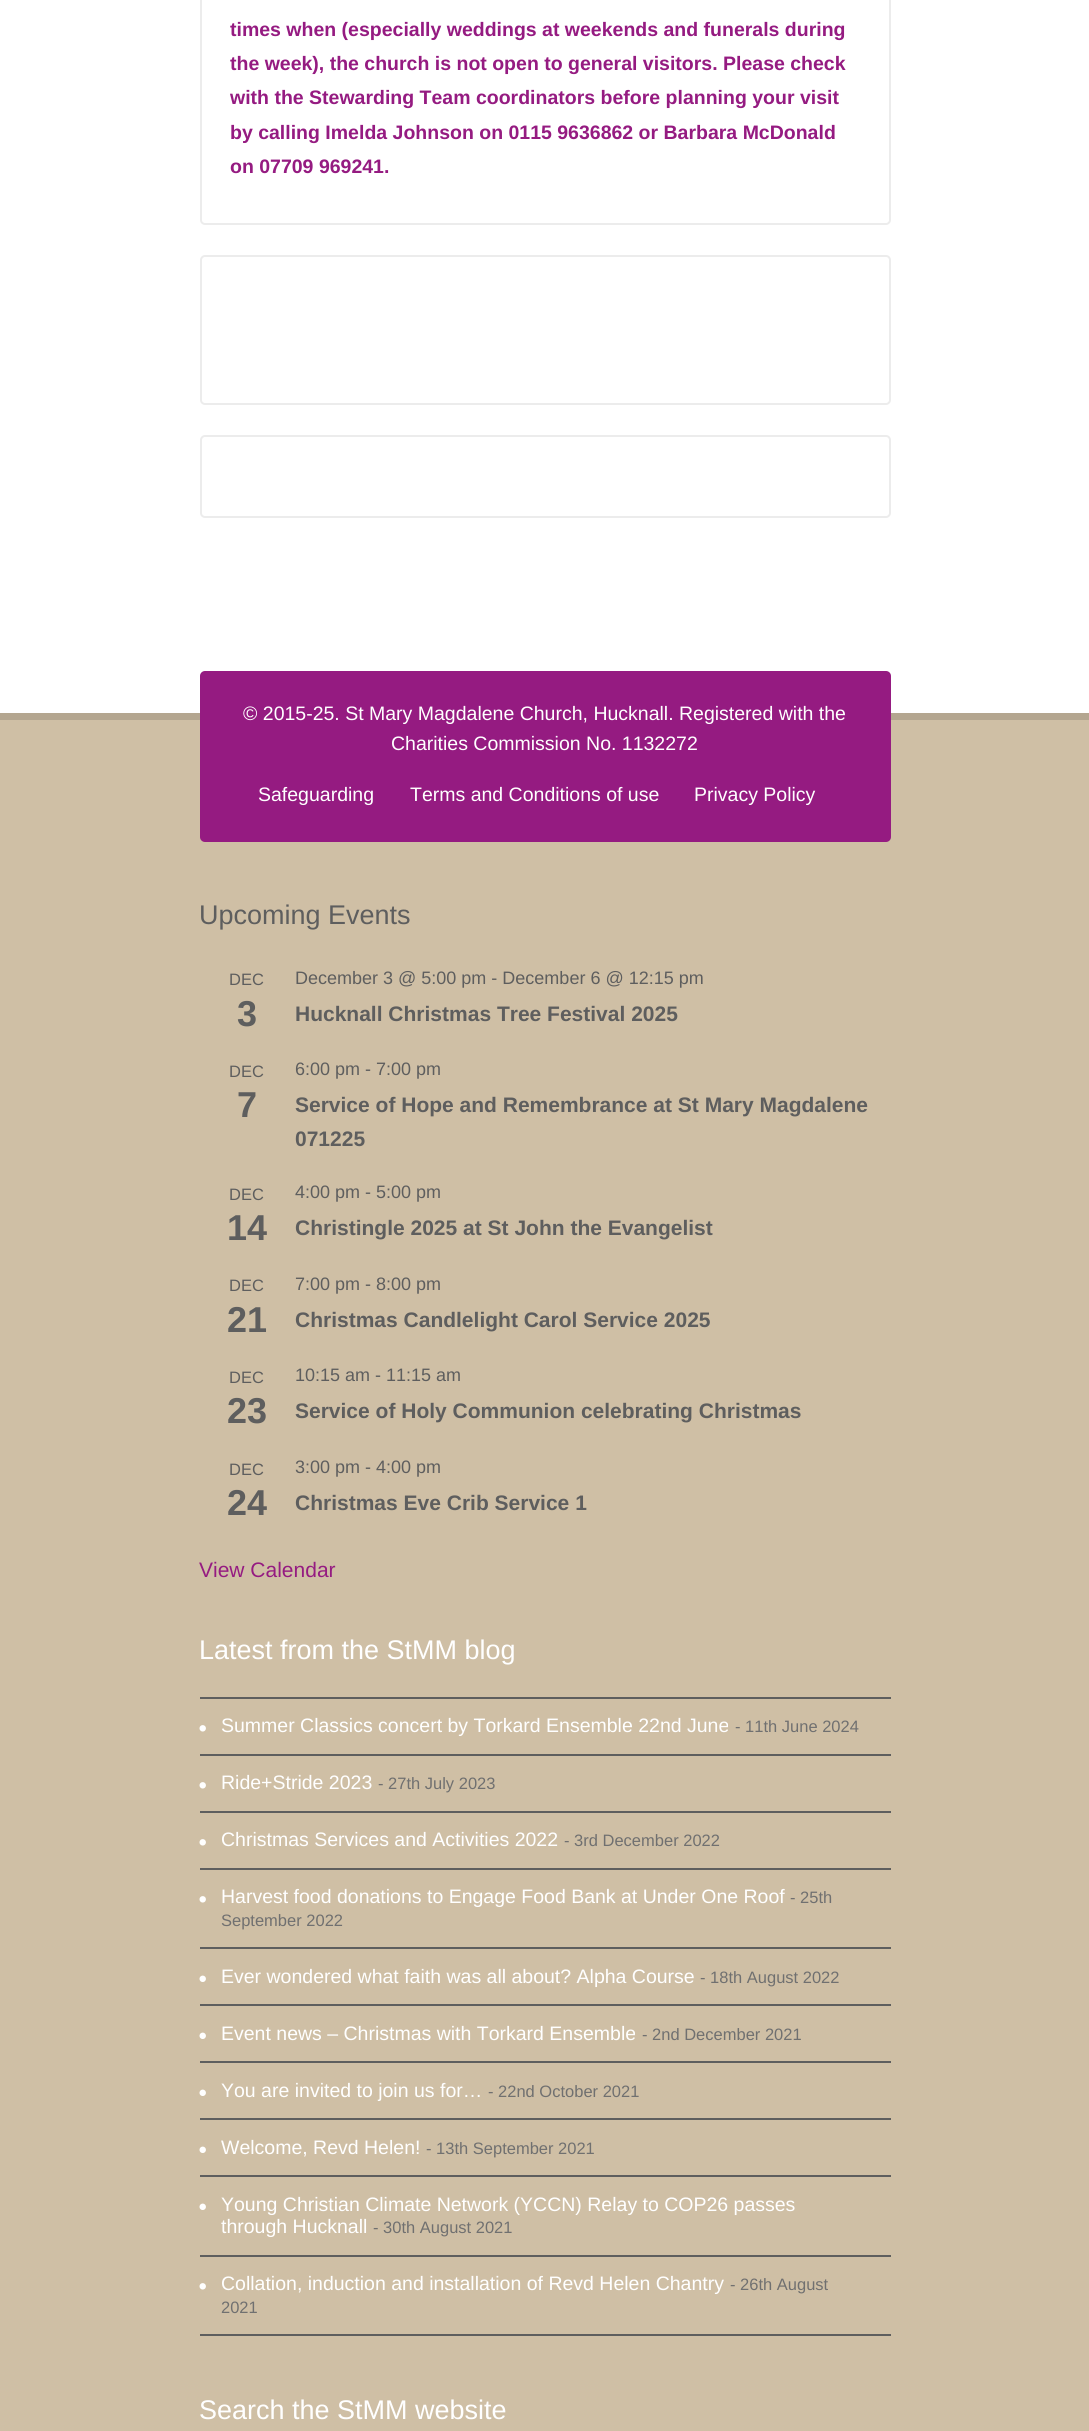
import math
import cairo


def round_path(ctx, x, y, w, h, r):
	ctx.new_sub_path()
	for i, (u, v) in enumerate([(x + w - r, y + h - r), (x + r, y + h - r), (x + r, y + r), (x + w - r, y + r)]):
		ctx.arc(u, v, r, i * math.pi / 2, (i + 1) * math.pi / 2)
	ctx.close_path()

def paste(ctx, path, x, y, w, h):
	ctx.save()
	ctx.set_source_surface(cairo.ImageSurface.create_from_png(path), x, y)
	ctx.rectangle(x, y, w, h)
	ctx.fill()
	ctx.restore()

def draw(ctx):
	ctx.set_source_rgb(1, 1, 1)
	ctx.paint()
	round_path(ctx, 201, -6, 689, 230, 4)
	ctx.set_source_rgb(0.925, 0.925, 0.925)
	ctx.stroke()
	ctx.select_font_face('Liberation Sans', cairo.FONT_SLANT_NORMAL, cairo.FONT_WEIGHT_BOLD)
	ctx.set_font_size(19.5)
	ctx.set_source_rgb(0.584, 0.106, 0.506)
	for x, y, s in [
		(230, 36, 'times when (especially weddings at weekends and funerals during'),
		(230, 70, 'the week), the church is not open to general visitors. Please check'),
		(230, 104, 'with the Stewarding Team coordinators before planning your visit'),
		(230, 139, 'by calling Imelda Johnson on 0115 9636862 or Barbara McDonald'),
		(230, 173, 'on 07709 969241.'),
	]:
		ctx.move_to(x, y)
		ctx.show_text(s)
	round_path(ctx, 201, 256, 689, 148, 4)
	ctx.set_source_rgb(0.925, 0.925, 0.925)
	ctx.stroke()
	round_path(ctx, 201, 436, 689, 81, 4)
	ctx.stroke()
	ctx.set_source_rgb(0.812, 0.749, 0.647)
	ctx.rectangle(0, 720, 1089, 1711)
	ctx.fill()
	ctx.set_source_rgb(0.706, 0.651, 0.565)
	ctx.rectangle(0, 713, 1089, 7)
	ctx.fill()
	ctx.set_source_rgb(0.584, 0.106, 0.506)
	round_path(ctx, 200, 671, 691, 171, 5)
	ctx.fill()
	ctx.select_font_face('Liberation Sans')
	ctx.set_source_rgb(1, 1, 1)
	for x, y, s in [
		(243, 720, '© 2015-25. St Mary Magdalene Church, Hucknall. Registered with the'),
		(391, 750, 'Charities Commission No. 1132272'),
		(258, 801, 'Safeguarding'),
		(410, 801, 'Terms and Conditions of use'),
		(694, 801, 'Privacy Policy'),
	]:
		ctx.move_to(x, y)
		ctx.show_text(s)
	ctx.set_font_size(27)
	ctx.set_source_rgb(0.369, 0.369, 0.369)
	ctx.move_to(199, 924)
	ctx.show_text('Upcoming Events')
	ctx.set_font_size(16.5)
	ctx.move_to(229, 985)
	ctx.show_text('DEC')
	ctx.select_font_face('Liberation Sans', cairo.FONT_SLANT_NORMAL, cairo.FONT_WEIGHT_BOLD)
	ctx.set_font_size(36)
	ctx.move_to(237, 1026)
	ctx.show_text('3')
	ctx.select_font_face('Liberation Sans')
	ctx.set_font_size(18)
	ctx.move_to(295, 984)
	ctx.show_text('December 3 @ 5:00 pm - December 6 @ 12:15 pm')
	ctx.select_font_face('Liberation Sans', cairo.FONT_SLANT_NORMAL, cairo.FONT_WEIGHT_BOLD)
	ctx.set_font_size(21)
	ctx.move_to(295, 1021)
	ctx.show_text('Hucknall Christmas Tree Festival 2025')
	ctx.select_font_face('Liberation Sans')
	ctx.set_font_size(16.5)
	ctx.move_to(229, 1077)
	ctx.show_text('DEC')
	ctx.select_font_face('Liberation Sans', cairo.FONT_SLANT_NORMAL, cairo.FONT_WEIGHT_BOLD)
	ctx.set_font_size(36)
	ctx.move_to(237, 1117)
	ctx.show_text('7')
	ctx.select_font_face('Liberation Sans')
	ctx.set_font_size(18)
	ctx.move_to(295, 1075)
	ctx.show_text('6:00 pm - 7:00 pm')
	ctx.select_font_face('Liberation Sans', cairo.FONT_SLANT_NORMAL, cairo.FONT_WEIGHT_BOLD)
	ctx.set_font_size(21)
	ctx.move_to(295, 1112)
	ctx.show_text('Service of Hope and Remembrance at St Mary Magdalene')
	ctx.move_to(295, 1146)
	ctx.show_text('071225')
	ctx.select_font_face('Liberation Sans')
	ctx.set_font_size(16.5)
	ctx.move_to(229, 1200)
	ctx.show_text('DEC')
	ctx.select_font_face('Liberation Sans', cairo.FONT_SLANT_NORMAL, cairo.FONT_WEIGHT_BOLD)
	ctx.set_font_size(36)
	ctx.move_to(227, 1240)
	ctx.show_text('14')
	ctx.select_font_face('Liberation Sans')
	ctx.set_font_size(18)
	ctx.move_to(295, 1198)
	ctx.show_text('4:00 pm - 5:00 pm')
	ctx.select_font_face('Liberation Sans', cairo.FONT_SLANT_NORMAL, cairo.FONT_WEIGHT_BOLD)
	ctx.set_font_size(21)
	ctx.move_to(295, 1235)
	ctx.show_text('Christingle 2025 at St John the Evangelist')
	ctx.select_font_face('Liberation Sans')
	ctx.set_font_size(16.5)
	ctx.move_to(229, 1291)
	ctx.show_text('DEC')
	ctx.select_font_face('Liberation Sans', cairo.FONT_SLANT_NORMAL, cairo.FONT_WEIGHT_BOLD)
	ctx.set_font_size(36)
	ctx.move_to(227, 1332)
	ctx.show_text('21')
	ctx.select_font_face('Liberation Sans')
	ctx.set_font_size(18)
	ctx.move_to(295, 1290)
	ctx.show_text('7:00 pm - 8:00 pm')
	ctx.select_font_face('Liberation Sans', cairo.FONT_SLANT_NORMAL, cairo.FONT_WEIGHT_BOLD)
	ctx.set_font_size(21)
	ctx.move_to(295, 1327)
	ctx.show_text('Christmas Candlelight Carol Service 2025')
	ctx.select_font_face('Liberation Sans')
	ctx.set_font_size(16.5)
	ctx.move_to(229, 1383)
	ctx.show_text('DEC')
	ctx.select_font_face('Liberation Sans', cairo.FONT_SLANT_NORMAL, cairo.FONT_WEIGHT_BOLD)
	ctx.set_font_size(36)
	ctx.move_to(227, 1423)
	ctx.show_text('23')
	ctx.select_font_face('Liberation Sans')
	ctx.set_font_size(18)
	ctx.move_to(295, 1381)
	ctx.show_text('10:15 am - 11:15 am')
	ctx.select_font_face('Liberation Sans', cairo.FONT_SLANT_NORMAL, cairo.FONT_WEIGHT_BOLD)
	ctx.set_font_size(21)
	ctx.move_to(295, 1418)
	ctx.show_text('Service of Holy Communion celebrating Christmas')
	ctx.select_font_face('Liberation Sans')
	ctx.set_font_size(16.5)
	ctx.move_to(229, 1475)
	ctx.show_text('DEC')
	ctx.select_font_face('Liberation Sans', cairo.FONT_SLANT_NORMAL, cairo.FONT_WEIGHT_BOLD)
	ctx.set_font_size(36)
	ctx.move_to(227, 1515)
	ctx.show_text('24')
	ctx.select_font_face('Liberation Sans')
	ctx.set_font_size(18)
	ctx.move_to(295, 1473)
	ctx.show_text('3:00 pm - 4:00 pm')
	ctx.select_font_face('Liberation Sans', cairo.FONT_SLANT_NORMAL, cairo.FONT_WEIGHT_BOLD)
	ctx.set_font_size(21)
	ctx.move_to(295, 1510)
	ctx.show_text('Christmas Eve Crib Service 1')
	ctx.select_font_face('Liberation Sans')
	ctx.set_source_rgb(0.584, 0.106, 0.506)
	ctx.move_to(199, 1577)
	ctx.show_text('View Calendar')
	ctx.set_font_size(27)
	ctx.set_source_rgb(1, 1, 1)
	ctx.move_to(199, 1659)
	ctx.show_text('Latest from the StMM blog')
	ctx.set_source_rgb(0.369, 0.369, 0.369)
	ctx.rectangle(200, 1697, 691, 2)
	ctx.fill()
	ctx.rectangle(200, 1754, 691, 2)
	ctx.fill()
	paste(ctx, 'media/1.png', 199, 1725, 7, 7)
	ctx.set_font_size(19.5)
	ctx.set_source_rgb(1, 1, 1)
	ctx.move_to(221, 1732)
	ctx.show_text('Summer Classics concert by Torkard Ensemble 22nd June')
	ctx.set_font_size(16.5)
	ctx.set_source_rgb(0.439, 0.439, 0.439)
	ctx.move_to(735, 1732)
	ctx.show_text('- 11th June 2024')
	ctx.set_source_rgb(0.369, 0.369, 0.369)
	ctx.rectangle(200, 1811, 691, 2)
	ctx.fill()
	paste(ctx, 'media/1.png', 199, 1782, 7, 7)
	ctx.set_font_size(19.5)
	ctx.set_source_rgb(1, 1, 1)
	ctx.move_to(221, 1789)
	ctx.show_text('Ride+Stride 2023')
	ctx.set_font_size(16.5)
	ctx.set_source_rgb(0.439, 0.439, 0.439)
	ctx.move_to(378, 1789)
	ctx.show_text('- 27th July 2023')
	ctx.set_source_rgb(0.369, 0.369, 0.369)
	ctx.rectangle(200, 1868, 691, 2)
	ctx.fill()
	paste(ctx, 'media/1.png', 199, 1839, 7, 7)
	ctx.set_font_size(19.5)
	ctx.set_source_rgb(1, 1, 1)
	ctx.move_to(221, 1846)
	ctx.show_text('Christmas Services and Activities 2022')
	ctx.set_font_size(16.5)
	ctx.set_source_rgb(0.439, 0.439, 0.439)
	ctx.move_to(564, 1846)
	ctx.show_text('- 3rd December 2022')
	ctx.set_source_rgb(0.369, 0.369, 0.369)
	ctx.rectangle(200, 1947, 691, 2)
	ctx.fill()
	paste(ctx, 'media/1.png', 199, 1896, 7, 7)
	ctx.set_font_size(19.5)
	ctx.set_source_rgb(1, 1, 1)
	ctx.move_to(221, 1903)
	ctx.show_text('Harvest food donations to Engage Food Bank at Under One Roof')
	ctx.set_font_size(16.5)
	ctx.set_source_rgb(0.439, 0.439, 0.439)
	ctx.move_to(790, 1903)
	ctx.show_text('- 25th')
	ctx.move_to(221, 1926)
	ctx.show_text('September 2022')
	ctx.set_source_rgb(0.369, 0.369, 0.369)
	ctx.rectangle(200, 2004, 691, 2)
	ctx.fill()
	paste(ctx, 'media/2.png', 199, 1975, 7, 7)
	ctx.set_font_size(19.5)
	ctx.set_source_rgb(1, 1, 1)
	ctx.move_to(221, 1983)
	ctx.show_text('Ever wondered what faith was all about? Alpha Course')
	ctx.set_font_size(16.5)
	ctx.set_source_rgb(0.439, 0.439, 0.439)
	ctx.move_to(700, 1983)
	ctx.show_text('- 18th August 2022')
	ctx.set_source_rgb(0.369, 0.369, 0.369)
	ctx.rectangle(200, 2061, 691, 2)
	ctx.fill()
	paste(ctx, 'media/2.png', 199, 2032, 7, 7)
	ctx.set_font_size(19.5)
	ctx.set_source_rgb(1, 1, 1)
	ctx.move_to(221, 2040)
	ctx.show_text('Event news – Christmas with Torkard Ensemble')
	ctx.set_font_size(16.5)
	ctx.set_source_rgb(0.439, 0.439, 0.439)
	ctx.move_to(642, 2040)
	ctx.show_text('- 2nd December 2021')
	ctx.set_source_rgb(0.369, 0.369, 0.369)
	ctx.rectangle(200, 2118, 691, 2)
	ctx.fill()
	paste(ctx, 'media/2.png', 199, 2089, 7, 7)
	ctx.set_font_size(19.5)
	ctx.set_source_rgb(1, 1, 1)
	ctx.move_to(221, 2097)
	ctx.show_text('You are invited to join us for…')
	ctx.set_font_size(16.5)
	ctx.set_source_rgb(0.439, 0.439, 0.439)
	ctx.move_to(488, 2097)
	ctx.show_text('- 22nd October 2021')
	ctx.set_source_rgb(0.369, 0.369, 0.369)
	ctx.rectangle(200, 2175, 691, 2)
	ctx.fill()
	paste(ctx, 'media/2.png', 199, 2146, 7, 7)
	ctx.set_font_size(19.5)
	ctx.set_source_rgb(1, 1, 1)
	ctx.move_to(221, 2154)
	ctx.show_text('Welcome, Revd Helen!')
	ctx.set_font_size(16.5)
	ctx.set_source_rgb(0.439, 0.439, 0.439)
	ctx.move_to(426, 2154)
	ctx.show_text('- 13th September 2021')
	ctx.set_source_rgb(0.369, 0.369, 0.369)
	ctx.rectangle(200, 2255, 691, 2)
	ctx.fill()
	paste(ctx, 'media/2.png', 199, 2203, 7, 7)
	ctx.set_font_size(19.5)
	ctx.set_source_rgb(1, 1, 1)
	ctx.move_to(221, 2211)
	ctx.show_text('Young Christian Climate Network (YCCN) Relay to COP26 passes')
	ctx.move_to(221, 2233)
	ctx.show_text('through Hucknall')
	ctx.set_font_size(16.5)
	ctx.set_source_rgb(0.439, 0.439, 0.439)
	ctx.move_to(373, 2233)
	ctx.show_text('- 30th August 2021')
	ctx.set_source_rgb(0.369, 0.369, 0.369)
	ctx.rectangle(200, 2334, 691, 2)
	ctx.fill()
	paste(ctx, 'media/1.png', 199, 2283, 7, 7)
	ctx.set_font_size(19.5)
	ctx.set_source_rgb(1, 1, 1)
	ctx.move_to(221, 2290)
	ctx.show_text('Collation, induction and installation of Revd Helen Chantry')
	ctx.set_font_size(16.5)
	ctx.set_source_rgb(0.439, 0.439, 0.439)
	ctx.move_to(730, 2290)
	ctx.show_text('- 26th August')
	ctx.move_to(221, 2313)
	ctx.show_text('2021')
	ctx.set_font_size(27)
	ctx.set_source_rgb(1, 1, 1)
	ctx.move_to(199, 2419)
	ctx.show_text('Search the StMM website')


surface = cairo.ImageSurface(cairo.FORMAT_RGB24, 1089, 2431)
ctx = cairo.Context(surface)
options = cairo.FontOptions()
options.set_hint_metrics(cairo.HINT_METRICS_OFF)
options.set_hint_style(cairo.HINT_STYLE_NONE)
ctx.set_font_options(options)
ctx.set_miter_limit(4)
draw(ctx)
surface.write_to_png('image.png')
